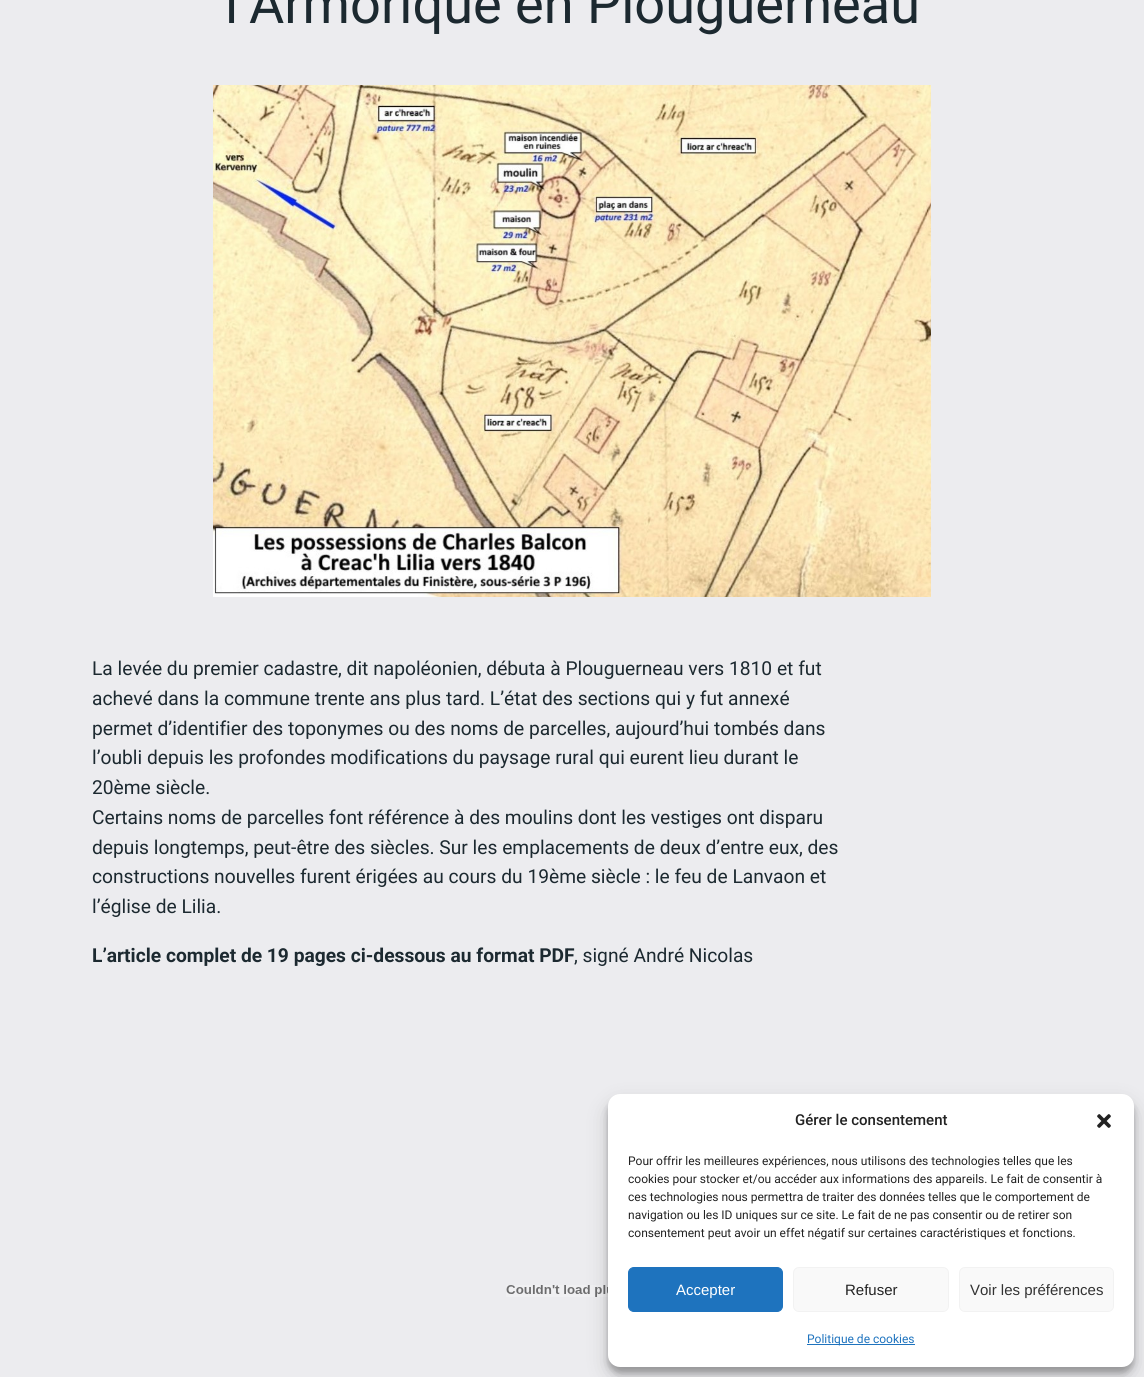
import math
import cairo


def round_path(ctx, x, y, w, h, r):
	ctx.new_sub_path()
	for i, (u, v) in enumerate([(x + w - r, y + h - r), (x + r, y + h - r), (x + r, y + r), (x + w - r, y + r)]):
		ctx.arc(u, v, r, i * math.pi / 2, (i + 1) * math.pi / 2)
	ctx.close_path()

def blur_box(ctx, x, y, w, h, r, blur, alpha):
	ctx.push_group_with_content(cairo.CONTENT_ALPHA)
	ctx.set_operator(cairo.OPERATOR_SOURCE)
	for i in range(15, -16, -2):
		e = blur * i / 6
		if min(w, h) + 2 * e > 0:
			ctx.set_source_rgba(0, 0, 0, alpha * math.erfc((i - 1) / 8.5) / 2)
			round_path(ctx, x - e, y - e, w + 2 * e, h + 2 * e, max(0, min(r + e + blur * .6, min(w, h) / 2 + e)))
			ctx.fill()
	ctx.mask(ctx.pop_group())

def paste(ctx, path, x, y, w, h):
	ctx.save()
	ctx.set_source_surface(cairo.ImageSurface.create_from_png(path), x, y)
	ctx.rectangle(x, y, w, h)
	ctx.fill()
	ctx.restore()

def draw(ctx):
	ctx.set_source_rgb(0.922, 0.922, 0.937)
	ctx.paint()
	ctx.select_font_face('Roboto')
	ctx.set_font_size(54.1)
	ctx.set_source_rgb(0.11, 0.161, 0.188)
	ctx.move_to(225, 23)
	ctx.show_text('l’Armorique en Plouguerneau')
	paste(ctx, 'media/1.png', 213, 85, 718, 512)
	ctx.set_font_size(19.2)
	for x, y, s in [
		(92, 675, 'La levée du premier cadastre, dit napoléonien, débuta à Plouguerneau vers 1810 et fut'),
		(92, 705, 'achevé dans la commune trente ans plus tard. L’état des sections qui y fut annexé'),
		(92, 735, 'permet d’identifier des toponymes ou des noms de parcelles, aujourd’hui tombés dans'),
		(92, 764, 'l’oubli depuis les profondes modifications du paysage rural qui eurent lieu durant le'),
		(92, 794, '20ème siècle.'),
		(92, 824, 'Certains noms de parcelles font référence à des moulins dont les vestiges ont disparu'),
		(92, 854, 'depuis longtemps, peut-être des siècles. Sur les emplacements de deux d’entre eux, des'),
		(92, 883, 'constructions nouvelles furent érigées au cours du 19ème siècle : le feu de Lanvaon et'),
		(92, 913, 'l’église de Lilia.'),
	]:
		ctx.move_to(x, y)
		ctx.show_text(s)
	ctx.select_font_face('Roboto', cairo.FONT_SLANT_NORMAL, cairo.FONT_WEIGHT_BOLD)
	ctx.move_to(92, 962)
	ctx.show_text('L’article complet de 19 pages ci-dessous au format PDF')
	ctx.select_font_face('Roboto')
	ctx.move_to(574, 962)
	ctx.show_text(', signé André Nicolas')
	paste(ctx, 'media/2.png', 506, 1285, 102, 12)
	ctx.set_source_rgb(0, 0, 0)
	blur_box(ctx, 608, 1100, 526, 273, 12, 3, 0.23)
	blur_box(ctx, 608, 1104, 526, 273, 12, 10, 0.19)
	ctx.set_source_rgb(1, 1, 1)
	round_path(ctx, 608, 1094, 526, 273, 12)
	ctx.fill()
	ctx.select_font_face('Roboto Medium')
	ctx.set_font_size(15)
	ctx.set_source_rgb(0.133, 0.133, 0.133)
	ctx.move_to(795, 1125)
	ctx.show_text('Gérer le consentement')
	paste(ctx, 'media/3.png', 1097, 1114, 14, 14)
	ctx.select_font_face('Roboto')
	ctx.set_font_size(12)
	for x, y, s in [
		(628, 1165, 'Pour offrir les meilleures expériences, nous utilisons des technologies telles que les'),
		(628, 1183, 'cookies pour stocker et/ou accéder aux informations des appareils. Le fait de consentir à'),
		(628, 1201, 'ces technologies nous permettra de traiter des données telles que le comportement de'),
		(628, 1219, 'navigation ou les ID uniques sur ce site. Le fait de ne pas consentir ou de retirer son'),
		(628, 1237, 'consentement peut avoir un effet négatif sur certaines caractéristiques et fonctions.'),
	]:
		ctx.move_to(x, y)
		ctx.show_text(s)
	ctx.set_source_rgb(0.118, 0.451, 0.745)
	round_path(ctx, 628.5, 1267.5, 154, 44, 5.5)
	ctx.fill_preserve()
	ctx.set_line_width(1)
	ctx.stroke()
	ctx.select_font_face('Liberation Sans')
	ctx.set_font_size(15)
	ctx.set_source_rgb(1, 1, 1)
	ctx.move_to(676, 1295)
	ctx.show_text('Accepter')
	ctx.set_source_rgb(0.976, 0.976, 0.976)
	round_path(ctx, 793.5, 1267.5, 155, 44, 5.5)
	ctx.fill_preserve()
	ctx.set_source_rgb(0.949, 0.949, 0.949)
	ctx.stroke()
	ctx.set_source_rgb(0.133, 0.133, 0.133)
	ctx.move_to(845, 1295)
	ctx.show_text('Refuser')
	ctx.set_source_rgb(0.976, 0.976, 0.976)
	round_path(ctx, 959.5, 1267.5, 154, 44, 5.5)
	ctx.fill_preserve()
	ctx.set_source_rgb(0.949, 0.949, 0.949)
	ctx.stroke()
	ctx.set_source_rgb(0.2, 0.2, 0.2)
	ctx.move_to(970, 1295)
	ctx.show_text('Voir les préférences')
	ctx.set_source_rgb(0.118, 0.451, 0.745)
	ctx.rectangle(807, 1344, 108, 1)
	ctx.fill()
	ctx.select_font_face('Roboto')
	ctx.set_font_size(12)
	ctx.move_to(807, 1343)
	ctx.show_text('Politique de cookies')


surface = cairo.ImageSurface(cairo.FORMAT_RGB24, 1144, 1377)
ctx = cairo.Context(surface)
options = cairo.FontOptions()
options.set_hint_metrics(cairo.HINT_METRICS_OFF)
options.set_hint_style(cairo.HINT_STYLE_NONE)
ctx.set_font_options(options)
ctx.set_miter_limit(4)
draw(ctx)
surface.write_to_png('image.png')
